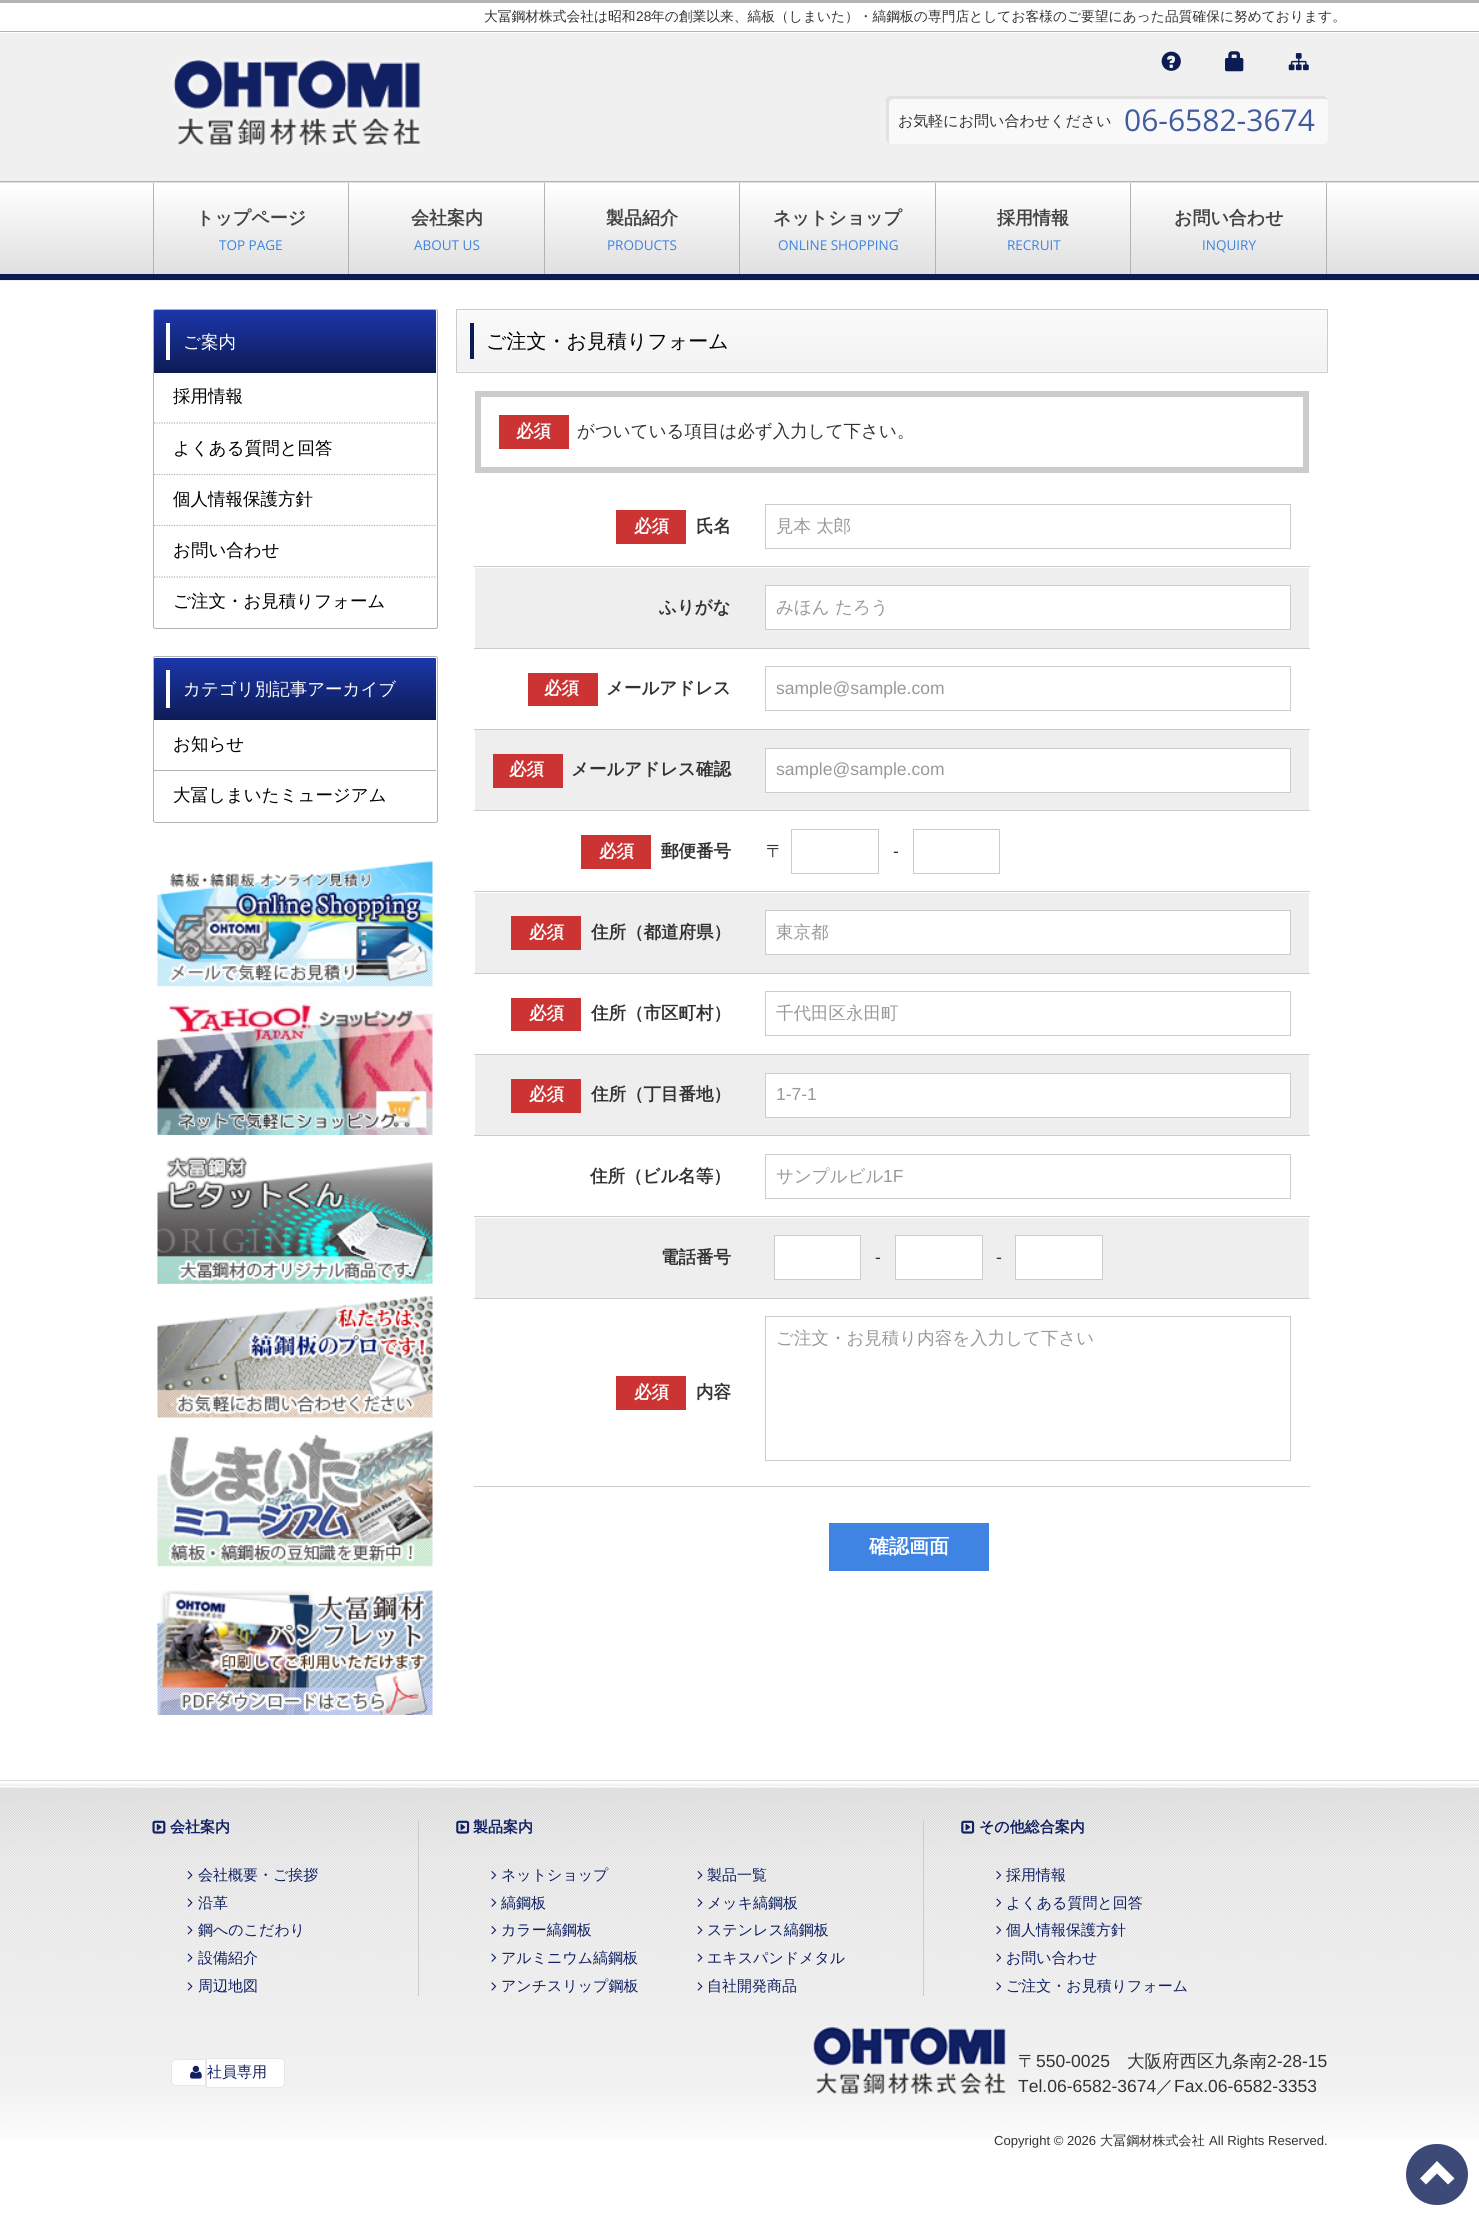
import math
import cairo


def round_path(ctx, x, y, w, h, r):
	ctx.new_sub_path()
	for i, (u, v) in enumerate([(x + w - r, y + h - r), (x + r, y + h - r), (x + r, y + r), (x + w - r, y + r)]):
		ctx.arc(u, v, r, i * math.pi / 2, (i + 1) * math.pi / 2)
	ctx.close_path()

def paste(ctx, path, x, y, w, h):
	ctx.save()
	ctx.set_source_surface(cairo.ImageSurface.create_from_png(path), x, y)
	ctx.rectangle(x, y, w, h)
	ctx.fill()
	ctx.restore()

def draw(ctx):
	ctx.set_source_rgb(1, 1, 1)
	ctx.paint()
	ctx.set_source_rgb(0.941, 0.941, 0.941)
	ctx.rectangle(0, 33, 1479, 148)
	ctx.fill()
	ctx.set_source_rgb(0.933, 0.933, 0.933)
	ctx.rectangle(0, 280, 1479, 1)
	ctx.fill()
	ctx.set_source_rgb(0.702, 0.702, 0.702)
	ctx.rectangle(0, 0, 1479, 3)
	ctx.rectangle(0, 31, 1479, 1)
	ctx.fill()
	ctx.select_font_face('WenQuanYi Zen Hei Medium')
	ctx.set_font_size(13.75)
	ctx.set_source_rgb(0.2, 0.2, 0.2)
	ctx.move_to(484, 21)
	ctx.show_text('大冨鋼材株式会社は昭和')
	ctx.select_font_face('Liberation Sans')
	ctx.move_to(636, 21)
	ctx.show_text('28')
	ctx.select_font_face('WenQuanYi Zen Hei Medium')
	ctx.move_to(651, 21)
	ctx.show_text('年の創業以来、縞板（しまいた）・縞鋼板の専門店としてお客様のご要望にあった品質確保に努めております。')
	paste(ctx, 'media/1.png', 172, 58, 249, 87)
	paste(ctx, 'media/2.png', 1161, 51, 20, 20)
	paste(ctx, 'media/3.png', 1225, 51, 19, 21)
	paste(ctx, 'media/4.png', 1288, 53, 21, 18)
	ctx.set_source_rgb(0.973, 0.973, 0.973)
	round_path(ctx, 886, 96, 442, 48, 5)
	ctx.fill()
	ctx.set_source_rgba(0, 0, 0, 0.1)
	ctx.new_path()
	ctx.move_to(894, 99)
	ctx.line_to(1325, 99)
	ctx.line_to(1328, 100)
	ctx.curve_to(1327, 98, 1325, 96, 1323, 96)
	ctx.line_to(891, 96)
	ctx.curve_to(888, 96, 886, 98, 886, 101)
	ctx.line_to(886, 139)
	ctx.curve_to(886, 141, 888, 143, 890, 144)
	ctx.line_to(889, 141)
	ctx.line_to(889, 104)
	ctx.curve_to(889, 101, 891, 99, 894, 99)
	ctx.close_path()
	ctx.fill()
	ctx.set_font_size(15)
	ctx.set_source_rgb(0.2, 0.2, 0.2)
	ctx.move_to(898, 126)
	ctx.show_text('お気軽にお問い合わせください')
	ctx.select_font_face('Open Sans')
	ctx.set_font_size(30)
	ctx.set_source_rgb(0.251, 0.357, 0.627)
	ctx.move_to(1124, 131)
	ctx.show_text('06-6582-3674')
	gradient = cairo.LinearGradient(740, 183, 740, 91)
	gradient.add_color_stop_rgba(0, 0.878, 0.878, 0.878, 1)
	gradient.add_color_stop_rgba(1, 1, 1, 1, 1)
	ctx.set_source(gradient)
	ctx.rectangle(0, 182, 1479, 1)
	ctx.fill()
	gradient = cairo.LinearGradient(740, 274, 740, 183)
	gradient.add_color_stop_rgba(0, 0.878, 0.878, 0.878, 1)
	gradient.add_color_stop_rgba(1, 1, 1, 1, 1)
	ctx.set_source(gradient)
	ctx.rectangle(0, 190, 1479, 84)
	ctx.fill()
	ctx.set_source_rgb(0.702, 0.702, 0.702)
	ctx.rectangle(0, 181, 1479, 1)
	ctx.fill()
	ctx.set_source_rgb(0.051, 0.106, 0.333)
	ctx.rectangle(0, 274, 1479, 6)
	ctx.fill()
	ctx.set_source_rgb(0.702, 0.702, 0.702)
	ctx.rectangle(1326, 183, 1, 91)
	ctx.rectangle(153, 183, 1, 91)
	ctx.fill()
	ctx.select_font_face('WenQuanYi Zen Hei', cairo.FONT_SLANT_NORMAL, cairo.FONT_WEIGHT_BOLD)
	ctx.set_font_size(18)
	ctx.set_source_rgb(0.267, 0.267, 0.267)
	ctx.move_to(196, 224)
	ctx.show_text('トップページ')
	ctx.select_font_face('Open Sans')
	ctx.set_font_size(13.5)
	ctx.set_source_rgb(0.243, 0.514, 0.882)
	ctx.move_to(219, 250)
	ctx.show_text('TOP PAGE')
	ctx.set_source_rgb(0.702, 0.702, 0.702)
	ctx.rectangle(348, 183, 1, 91)
	ctx.fill()
	ctx.select_font_face('WenQuanYi Zen Hei', cairo.FONT_SLANT_NORMAL, cairo.FONT_WEIGHT_BOLD)
	ctx.set_font_size(18)
	ctx.set_source_rgb(0.267, 0.267, 0.267)
	ctx.move_to(411, 224)
	ctx.show_text('会社案内')
	ctx.select_font_face('Open Sans')
	ctx.set_font_size(13.5)
	ctx.set_source_rgb(0.243, 0.514, 0.882)
	ctx.move_to(414, 250)
	ctx.show_text('ABOUT US')
	ctx.set_source_rgb(0.702, 0.702, 0.702)
	ctx.rectangle(544, 183, 1, 91)
	ctx.fill()
	ctx.select_font_face('WenQuanYi Zen Hei', cairo.FONT_SLANT_NORMAL, cairo.FONT_WEIGHT_BOLD)
	ctx.set_font_size(18)
	ctx.set_source_rgb(0.267, 0.267, 0.267)
	ctx.move_to(606, 224)
	ctx.show_text('製品紹介')
	ctx.select_font_face('Open Sans')
	ctx.set_font_size(13.5)
	ctx.set_source_rgb(0.243, 0.514, 0.882)
	ctx.move_to(607, 250)
	ctx.show_text('PRODUCTS')
	ctx.set_source_rgb(0.702, 0.702, 0.702)
	ctx.rectangle(739, 183, 1, 91)
	ctx.fill()
	ctx.select_font_face('WenQuanYi Zen Hei', cairo.FONT_SLANT_NORMAL, cairo.FONT_WEIGHT_BOLD)
	ctx.set_font_size(18)
	ctx.set_source_rgb(0.267, 0.267, 0.267)
	ctx.move_to(773, 224)
	ctx.show_text('ネットショップ')
	ctx.select_font_face('Open Sans')
	ctx.set_font_size(13.5)
	ctx.set_source_rgb(0.243, 0.514, 0.882)
	ctx.move_to(778, 250)
	ctx.show_text('ONLINE SHOPPING')
	ctx.set_source_rgb(0.702, 0.702, 0.702)
	ctx.rectangle(935, 183, 1, 91)
	ctx.fill()
	ctx.select_font_face('WenQuanYi Zen Hei', cairo.FONT_SLANT_NORMAL, cairo.FONT_WEIGHT_BOLD)
	ctx.set_font_size(18)
	ctx.set_source_rgb(0.267, 0.267, 0.267)
	ctx.move_to(997, 224)
	ctx.show_text('採用情報')
	ctx.select_font_face('Open Sans')
	ctx.set_font_size(13.5)
	ctx.set_source_rgb(0.243, 0.514, 0.882)
	ctx.move_to(1007, 250)
	ctx.show_text('RECRUIT')
	ctx.set_source_rgb(0.702, 0.702, 0.702)
	ctx.rectangle(1130, 183, 1, 91)
	ctx.fill()
	ctx.select_font_face('WenQuanYi Zen Hei', cairo.FONT_SLANT_NORMAL, cairo.FONT_WEIGHT_BOLD)
	ctx.set_font_size(18)
	ctx.set_source_rgb(0.267, 0.267, 0.267)
	ctx.move_to(1174, 224)
	ctx.show_text('お問い合わせ')
	ctx.select_font_face('Open Sans')
	ctx.set_font_size(13.5)
	ctx.set_source_rgb(0.243, 0.514, 0.882)
	ctx.move_to(1202, 250)
	ctx.show_text('INQUIRY')
	round_path(ctx, 153.5, 309.5, 284, 319, 2)
	ctx.set_source_rgb(0.702, 0.702, 0.702)
	ctx.set_line_width(1)
	ctx.stroke()
	gradient = cairo.LinearGradient(295, 373, 295, 310)
	gradient.add_color_stop_rgba(0, 0.051, 0.106, 0.333, 1)
	gradient.add_color_stop_rgba(1, 0.106, 0.216, 0.671, 1)
	ctx.set_source(gradient)
	ctx.new_path()
	ctx.move_to(155, 310)
	ctx.line_to(435, 310)
	ctx.curve_to(435.5, 310, 436, 310.5, 436, 311)
	ctx.line_to(436, 373)
	ctx.line_to(154, 373)
	ctx.line_to(154, 311)
	ctx.curve_to(154, 310.5, 154.5, 310, 155, 310)
	ctx.close_path()
	ctx.fill()
	ctx.set_source_rgb(1, 1, 1)
	ctx.rectangle(166, 323, 4, 37)
	ctx.fill()
	ctx.select_font_face('WenQuanYi Zen Hei Medium')
	ctx.set_font_size(17.5)
	ctx.move_to(183, 348)
	ctx.show_text('ご案内')
	ctx.new_path()
	ctx.move_to(154, 423)
	ctx.line_to(436, 423)
	ctx.set_source_rgb(0.702, 0.702, 0.702)
	ctx.set_line_width(1.2)
	ctx.set_dash([1.25, 1.25])
	ctx.stroke()
	ctx.set_source_rgb(0, 0, 0)
	ctx.move_to(173, 402)
	ctx.show_text('採用情報')
	ctx.new_path()
	ctx.move_to(154, 474.5)
	ctx.line_to(436, 474.5)
	ctx.set_source_rgb(0.702, 0.702, 0.702)
	ctx.stroke()
	ctx.set_source_rgb(0, 0, 0)
	ctx.move_to(173, 454)
	ctx.show_text('よくある質問と回答')
	ctx.new_path()
	ctx.move_to(154, 525.5)
	ctx.line_to(436, 525.5)
	ctx.set_source_rgb(0.702, 0.702, 0.702)
	ctx.stroke()
	ctx.set_source_rgb(0, 0, 0)
	ctx.move_to(173, 505)
	ctx.show_text('個人情報保護方針')
	ctx.new_path()
	ctx.move_to(154, 577)
	ctx.line_to(436, 577)
	ctx.set_source_rgb(0.702, 0.702, 0.702)
	ctx.stroke()
	ctx.set_source_rgb(0, 0, 0)
	ctx.move_to(173, 556)
	ctx.show_text('お問い合わせ')
	ctx.move_to(173, 607)
	ctx.show_text('ご注文・お見積りフォーム')
	round_path(ctx, 153.5, 656.5, 284, 166, 2)
	ctx.set_source_rgb(0.702, 0.702, 0.702)
	ctx.set_line_width(1)
	ctx.set_dash([])
	ctx.stroke()
	gradient = cairo.LinearGradient(295, 720, 295, 658)
	gradient.add_color_stop_rgba(0, 0.051, 0.106, 0.333, 1)
	gradient.add_color_stop_rgba(1, 0.106, 0.216, 0.671, 1)
	ctx.set_source(gradient)
	ctx.new_path()
	ctx.move_to(155, 658)
	ctx.line_to(435, 658)
	ctx.curve_to(435.5, 658, 436, 658.5, 436, 659)
	ctx.line_to(436, 720)
	ctx.line_to(154, 720)
	ctx.line_to(154, 659)
	ctx.curve_to(154, 658.5, 154.5, 658, 155, 658)
	ctx.close_path()
	ctx.fill()
	ctx.set_source_rgb(1, 1, 1)
	ctx.rectangle(166, 670, 4, 38)
	ctx.fill()
	ctx.move_to(183, 695)
	ctx.show_text('カテゴリ別記事アーカイブ')
	ctx.set_source_rgb(0.702, 0.702, 0.702)
	ctx.rectangle(154, 770, 282, 1)
	ctx.fill()
	ctx.set_source_rgb(0, 0, 0)
	ctx.move_to(173, 750)
	ctx.show_text('お知らせ')
	ctx.move_to(173, 801)
	ctx.show_text('大冨しまいたミュージアム')
	paste(ctx, 'media/5.png', 157, 861, 276, 126)
	paste(ctx, 'media/6.png', 157, 999, 276, 136)
	paste(ctx, 'media/7.png', 157, 1156, 276, 128)
	paste(ctx, 'media/8.png', 157, 1296, 276, 122)
	paste(ctx, 'media/9.png', 157, 1430, 276, 137)
	paste(ctx, 'media/10.png', 157, 1590, 276, 125)
	gradient = cairo.LinearGradient(892, 371, 892, 310)
	gradient.add_color_stop_rgba(0, 0.949, 0.949, 0.949, 1)
	gradient.add_color_stop_rgba(1, 0.98, 0.98, 0.98, 1)
	ctx.set_source(gradient)
	ctx.rectangle(457, 310, 870, 61)
	ctx.fill()
	gradient = cairo.LinearGradient(892, 433, 892, 371)
	gradient.add_color_stop_rgba(0, 0.949, 0.949, 0.949, 1)
	gradient.add_color_stop_rgba(1, 0.98, 0.98, 0.98, 1)
	ctx.set_source(gradient)
	ctx.rectangle(456, 371, 872, 1)
	ctx.fill()
	ctx.rectangle(456.5, 309.5, 871, 63)
	ctx.set_source_rgb(0.8, 0.8, 0.8)
	ctx.stroke()
	ctx.set_source_rgb(0.051, 0.106, 0.333)
	ctx.rectangle(470, 323, 4, 36)
	ctx.fill()
	ctx.set_font_size(20)
	ctx.set_source_rgb(0, 0, 0)
	ctx.move_to(486, 348)
	ctx.show_text('ご注文・お見積りフォーム')
	ctx.rectangle(478, 394, 828, 76)
	ctx.set_source_rgb(0.8, 0.8, 0.8)
	ctx.set_line_width(6)
	ctx.stroke()
	ctx.set_source_rgb(0.8, 0.2, 0.2)
	ctx.rectangle(499, 415, 70, 34)
	ctx.fill()
	ctx.select_font_face('WenQuanYi Zen Hei', cairo.FONT_SLANT_NORMAL, cairo.FONT_WEIGHT_BOLD)
	ctx.set_font_size(17.5)
	ctx.set_source_rgb(1, 1, 1)
	ctx.move_to(516, 437)
	ctx.show_text('必須')
	ctx.select_font_face('WenQuanYi Zen Hei Medium')
	ctx.set_source_rgb(0.2, 0.2, 0.2)
	ctx.move_to(577, 437)
	ctx.show_text('がついている項目は必ず入力して下さい。')
	ctx.set_source_rgb(0.8, 0.2, 0.2)
	ctx.rectangle(616, 510, 70, 34)
	ctx.fill()
	ctx.select_font_face('WenQuanYi Zen Hei', cairo.FONT_SLANT_NORMAL, cairo.FONT_WEIGHT_BOLD)
	ctx.set_source_rgb(1, 1, 1)
	ctx.move_to(634, 532)
	ctx.show_text('必須')
	ctx.set_source_rgb(0.2, 0.2, 0.2)
	ctx.move_to(696, 532)
	ctx.show_text('氏名')
	ctx.set_source_rgb(0.8, 0.8, 0.8)
	ctx.rectangle(474, 566, 836, 1)
	ctx.fill()
	ctx.rectangle(765.5, 504.5, 525, 44)
	ctx.set_line_width(1)
	ctx.stroke()
	ctx.select_font_face('WenQuanYi Zen Hei Medium')
	ctx.set_source_rgb(0.6, 0.6, 0.6)
	ctx.move_to(776, 532)
	ctx.show_text('見本 太郎')
	ctx.set_source_rgb(0.933, 0.933, 0.933)
	ctx.rectangle(475, 568, 834, 80)
	ctx.fill()
	ctx.select_font_face('WenQuanYi Zen Hei', cairo.FONT_SLANT_NORMAL, cairo.FONT_WEIGHT_BOLD)
	ctx.set_source_rgb(0.2, 0.2, 0.2)
	ctx.move_to(659, 613)
	ctx.show_text('ふりがな')
	ctx.set_source_rgb(0.8, 0.8, 0.8)
	ctx.rectangle(474, 648, 836, 1)
	ctx.fill()
	ctx.set_source_rgb(1, 1, 1)
	ctx.rectangle(765.5, 585.5, 525, 44)
	ctx.fill_preserve()
	ctx.set_source_rgb(0.8, 0.8, 0.8)
	ctx.stroke()
	ctx.select_font_face('WenQuanYi Zen Hei Medium')
	ctx.set_source_rgb(0.6, 0.6, 0.6)
	ctx.move_to(776, 613)
	ctx.show_text('みほん たろう')
	ctx.set_source_rgb(0.8, 0.2, 0.2)
	ctx.rectangle(528, 673, 70, 33)
	ctx.fill()
	ctx.select_font_face('WenQuanYi Zen Hei', cairo.FONT_SLANT_NORMAL, cairo.FONT_WEIGHT_BOLD)
	ctx.set_source_rgb(1, 1, 1)
	ctx.move_to(544, 694)
	ctx.show_text('必須')
	ctx.set_source_rgb(0.2, 0.2, 0.2)
	ctx.move_to(606, 694)
	ctx.show_text('メールアドレス')
	ctx.set_source_rgb(0.8, 0.8, 0.8)
	ctx.rectangle(474, 729, 836, 1)
	ctx.fill()
	ctx.rectangle(765.5, 666.5, 525, 44)
	ctx.stroke()
	ctx.select_font_face('Liberation Sans')
	ctx.set_source_rgb(0.6, 0.6, 0.6)
	ctx.move_to(776, 694)
	ctx.show_text('sample@sample.com')
	ctx.set_source_rgb(0.933, 0.933, 0.933)
	ctx.rectangle(475, 730, 834, 80)
	ctx.fill()
	ctx.set_source_rgb(0.8, 0.2, 0.2)
	ctx.rectangle(493, 754, 70, 34)
	ctx.fill()
	ctx.select_font_face('WenQuanYi Zen Hei', cairo.FONT_SLANT_NORMAL, cairo.FONT_WEIGHT_BOLD)
	ctx.set_source_rgb(1, 1, 1)
	ctx.move_to(509, 775)
	ctx.show_text('必須')
	ctx.set_source_rgb(0.2, 0.2, 0.2)
	ctx.move_to(571, 775)
	ctx.show_text('メールアドレス確認')
	ctx.set_source_rgb(0.8, 0.8, 0.8)
	ctx.rectangle(474, 810, 836, 1)
	ctx.fill()
	ctx.set_source_rgb(1, 1, 1)
	ctx.rectangle(765.5, 748.5, 525, 44)
	ctx.fill_preserve()
	ctx.set_source_rgb(0.8, 0.8, 0.8)
	ctx.stroke()
	ctx.select_font_face('Liberation Sans')
	ctx.set_source_rgb(0.6, 0.6, 0.6)
	ctx.move_to(776, 775)
	ctx.show_text('sample@sample.com')
	ctx.set_source_rgb(0.8, 0.2, 0.2)
	ctx.rectangle(581, 835, 70, 34)
	ctx.fill()
	ctx.select_font_face('WenQuanYi Zen Hei', cairo.FONT_SLANT_NORMAL, cairo.FONT_WEIGHT_BOLD)
	ctx.set_source_rgb(1, 1, 1)
	ctx.move_to(599, 857)
	ctx.show_text('必須')
	ctx.set_source_rgb(0.2, 0.2, 0.2)
	ctx.move_to(661, 857)
	ctx.show_text('郵便番号')
	ctx.set_source_rgb(0.8, 0.8, 0.8)
	ctx.rectangle(474, 891, 836, 1)
	ctx.fill()
	ctx.select_font_face('WenQuanYi Zen Hei Medium')
	ctx.set_source_rgb(0.2, 0.2, 0.2)
	ctx.move_to(766, 857)
	ctx.show_text('〒')
	ctx.rectangle(791.5, 829.5, 87, 44)
	ctx.set_source_rgb(0.8, 0.8, 0.8)
	ctx.stroke()
	ctx.select_font_face('Liberation Sans')
	ctx.set_source_rgb(0.2, 0.2, 0.2)
	ctx.move_to(893, 857)
	ctx.show_text('-')
	ctx.rectangle(913.5, 829.5, 86, 44)
	ctx.set_source_rgb(0.8, 0.8, 0.8)
	ctx.stroke()
	ctx.set_source_rgb(0.933, 0.933, 0.933)
	ctx.rectangle(475, 893, 834, 80)
	ctx.fill()
	ctx.set_source_rgb(0.8, 0.2, 0.2)
	ctx.rectangle(511, 916, 70, 34)
	ctx.fill()
	ctx.select_font_face('WenQuanYi Zen Hei', cairo.FONT_SLANT_NORMAL, cairo.FONT_WEIGHT_BOLD)
	ctx.set_source_rgb(1, 1, 1)
	ctx.move_to(529, 938)
	ctx.show_text('必須')
	ctx.set_source_rgb(0.2, 0.2, 0.2)
	ctx.move_to(591, 938)
	ctx.show_text('住所（都道府県）')
	ctx.set_source_rgb(0.8, 0.8, 0.8)
	ctx.rectangle(474, 973, 836, 1)
	ctx.fill()
	ctx.set_source_rgb(1, 1, 1)
	ctx.rectangle(765.5, 910.5, 525, 44)
	ctx.fill_preserve()
	ctx.set_source_rgb(0.8, 0.8, 0.8)
	ctx.stroke()
	ctx.select_font_face('WenQuanYi Zen Hei Medium')
	ctx.set_source_rgb(0.6, 0.6, 0.6)
	ctx.move_to(776, 938)
	ctx.show_text('東京都')
	ctx.set_source_rgb(0.8, 0.2, 0.2)
	ctx.rectangle(511, 998, 70, 33)
	ctx.fill()
	ctx.select_font_face('WenQuanYi Zen Hei', cairo.FONT_SLANT_NORMAL, cairo.FONT_WEIGHT_BOLD)
	ctx.set_source_rgb(1, 1, 1)
	ctx.move_to(529, 1019)
	ctx.show_text('必須')
	ctx.set_source_rgb(0.2, 0.2, 0.2)
	ctx.move_to(591, 1019)
	ctx.show_text('住所（市区町村）')
	ctx.set_source_rgb(0.8, 0.8, 0.8)
	ctx.rectangle(474, 1054, 836, 1)
	ctx.fill()
	ctx.rectangle(765.5, 991.5, 525, 44)
	ctx.stroke()
	ctx.select_font_face('WenQuanYi Zen Hei Medium')
	ctx.set_source_rgb(0.6, 0.6, 0.6)
	ctx.move_to(776, 1019)
	ctx.show_text('千代田区永田町')
	ctx.set_source_rgb(0.933, 0.933, 0.933)
	ctx.rectangle(475, 1055, 834, 80)
	ctx.fill()
	ctx.set_source_rgb(0.8, 0.2, 0.2)
	ctx.rectangle(511, 1079, 70, 34)
	ctx.fill()
	ctx.select_font_face('WenQuanYi Zen Hei', cairo.FONT_SLANT_NORMAL, cairo.FONT_WEIGHT_BOLD)
	ctx.set_source_rgb(1, 1, 1)
	ctx.move_to(529, 1100)
	ctx.show_text('必須')
	ctx.set_source_rgb(0.2, 0.2, 0.2)
	ctx.move_to(591, 1100)
	ctx.show_text('住所（丁目番地）')
	ctx.set_source_rgb(0.8, 0.8, 0.8)
	ctx.rectangle(474, 1135, 836, 1)
	ctx.fill()
	ctx.set_source_rgb(1, 1, 1)
	ctx.rectangle(765.5, 1073.5, 525, 44)
	ctx.fill_preserve()
	ctx.set_source_rgb(0.8, 0.8, 0.8)
	ctx.stroke()
	ctx.select_font_face('Liberation Sans')
	ctx.set_source_rgb(0.6, 0.6, 0.6)
	ctx.move_to(776, 1100)
	ctx.show_text('1-7-1')
	ctx.select_font_face('WenQuanYi Zen Hei', cairo.FONT_SLANT_NORMAL, cairo.FONT_WEIGHT_BOLD)
	ctx.set_source_rgb(0.2, 0.2, 0.2)
	ctx.move_to(590, 1182)
	ctx.show_text('住所（ビル名等）')
	ctx.set_source_rgb(0.8, 0.8, 0.8)
	ctx.rectangle(474, 1216, 836, 1)
	ctx.fill()
	ctx.rectangle(765.5, 1154.5, 525, 44)
	ctx.stroke()
	ctx.select_font_face('WenQuanYi Zen Hei Medium')
	ctx.set_source_rgb(0.6, 0.6, 0.6)
	ctx.move_to(776, 1182)
	ctx.show_text('サンプルビル')
	ctx.select_font_face('Liberation Sans')
	ctx.move_to(883, 1182)
	ctx.show_text('1F')
	ctx.set_source_rgb(0.933, 0.933, 0.933)
	ctx.rectangle(475, 1218, 834, 80)
	ctx.fill()
	ctx.select_font_face('WenQuanYi Zen Hei', cairo.FONT_SLANT_NORMAL, cairo.FONT_WEIGHT_BOLD)
	ctx.set_source_rgb(0.2, 0.2, 0.2)
	ctx.move_to(661, 1263)
	ctx.show_text('電話番号')
	ctx.set_source_rgb(0.8, 0.8, 0.8)
	ctx.rectangle(474, 1298, 836, 1)
	ctx.fill()
	ctx.set_source_rgb(1, 1, 1)
	ctx.rectangle(774.5, 1235.5, 86, 44)
	ctx.fill_preserve()
	ctx.set_source_rgb(0.8, 0.8, 0.8)
	ctx.stroke()
	ctx.select_font_face('Liberation Sans')
	ctx.set_source_rgb(0.2, 0.2, 0.2)
	ctx.move_to(875, 1263)
	ctx.show_text('-')
	ctx.set_source_rgb(1, 1, 1)
	ctx.rectangle(895.5, 1235.5, 87, 44)
	ctx.fill_preserve()
	ctx.set_source_rgb(0.8, 0.8, 0.8)
	ctx.stroke()
	ctx.set_source_rgb(0.2, 0.2, 0.2)
	ctx.move_to(996, 1263)
	ctx.show_text('-')
	ctx.set_source_rgb(1, 1, 1)
	ctx.rectangle(1015.5, 1235.5, 87, 44)
	ctx.fill_preserve()
	ctx.set_source_rgb(0.8, 0.8, 0.8)
	ctx.stroke()
	ctx.rectangle(474, 1486, 836, 1)
	ctx.fill()
	ctx.rectangle(765.5, 1316.5, 525, 144)
	ctx.stroke()
	ctx.select_font_face('WenQuanYi Zen Hei Medium')
	ctx.set_source_rgb(0.6, 0.6, 0.6)
	ctx.move_to(776, 1344)
	ctx.show_text('ご注文・お見積り内容を入力して下さい')
	ctx.set_source_rgb(0.8, 0.2, 0.2)
	ctx.rectangle(616, 1376, 70, 34)
	ctx.fill()
	ctx.select_font_face('WenQuanYi Zen Hei', cairo.FONT_SLANT_NORMAL, cairo.FONT_WEIGHT_BOLD)
	ctx.set_source_rgb(1, 1, 1)
	ctx.move_to(634, 1398)
	ctx.show_text('必須')
	ctx.set_source_rgb(0.2, 0.2, 0.2)
	ctx.move_to(696, 1398)
	ctx.show_text('内容')
	ctx.set_source_rgb(0.247, 0.518, 0.886)
	ctx.rectangle(829, 1523, 160, 48)
	ctx.fill()
	ctx.set_font_size(20)
	ctx.set_source_rgb(1, 1, 1)
	ctx.move_to(869, 1553)
	ctx.show_text('確認画面')
	paste(ctx, 'media/11.png', 0, 1783, 1479, 357)
	ctx.set_source_rgb(0.867, 0.867, 0.867)
	ctx.rectangle(0, 1780, 1479, 1)
	ctx.fill()
	ctx.set_source_rgb(0.8, 0.8, 0.8)
	ctx.rectangle(418, 1820, 1, 176)
	ctx.fill()
	paste(ctx, 'media/12.png', 152, 1820, 14, 14)
	ctx.set_font_size(15)
	ctx.set_source_rgb(0.063, 0.125, 0.384)
	ctx.move_to(170, 1832)
	ctx.show_text('会社案内')
	paste(ctx, 'media/13.png', 187, 1871, 6, 9)
	ctx.select_font_face('WenQuanYi Zen Hei Medium')
	ctx.move_to(198, 1880)
	ctx.show_text('会社概要・ご挨拶')
	paste(ctx, 'media/14.png', 187, 1898, 6, 9)
	ctx.move_to(198, 1908)
	ctx.show_text('沿革')
	paste(ctx, 'media/15.png', 187, 1926, 6, 9)
	ctx.move_to(198, 1935)
	ctx.show_text('鋼へのこだわり')
	paste(ctx, 'media/16.png', 187, 1953, 6, 9)
	ctx.move_to(198, 1963)
	ctx.show_text('設備紹介')
	paste(ctx, 'media/17.png', 187, 1982, 6, 9)
	ctx.move_to(198, 1991)
	ctx.show_text('周辺地図')
	ctx.set_source_rgb(0.8, 0.8, 0.8)
	ctx.rectangle(923, 1820, 1, 176)
	ctx.fill()
	paste(ctx, 'media/18.png', 456, 1820, 14, 14)
	ctx.select_font_face('WenQuanYi Zen Hei', cairo.FONT_SLANT_NORMAL, cairo.FONT_WEIGHT_BOLD)
	ctx.set_source_rgb(0.063, 0.125, 0.384)
	ctx.move_to(473, 1832)
	ctx.show_text('製品案内')
	paste(ctx, 'media/19.png', 491, 1871, 6, 9)
	ctx.select_font_face('WenQuanYi Zen Hei Medium')
	ctx.move_to(501, 1880)
	ctx.show_text('ネットショップ')
	paste(ctx, 'media/13.png', 697, 1871, 6, 9)
	ctx.move_to(707, 1880)
	ctx.show_text('製品一覧')
	paste(ctx, 'media/20.png', 491, 1898, 6, 9)
	ctx.move_to(501, 1908)
	ctx.show_text('縞鋼板')
	paste(ctx, 'media/14.png', 697, 1898, 6, 9)
	ctx.move_to(707, 1908)
	ctx.show_text('メッキ縞鋼板')
	paste(ctx, 'media/21.png', 491, 1926, 6, 9)
	ctx.move_to(501, 1935)
	ctx.show_text('カラー縞鋼板')
	paste(ctx, 'media/15.png', 697, 1926, 6, 9)
	ctx.move_to(707, 1935)
	ctx.show_text('ステンレス縞鋼板')
	paste(ctx, 'media/22.png', 491, 1953, 6, 9)
	ctx.move_to(501, 1963)
	ctx.show_text('アルミニウム縞鋼板')
	paste(ctx, 'media/16.png', 697, 1953, 6, 9)
	ctx.move_to(707, 1963)
	ctx.show_text('エキスパンドメタル')
	paste(ctx, 'media/23.png', 491, 1982, 6, 9)
	ctx.move_to(501, 1991)
	ctx.show_text('アンチスリップ鋼板')
	paste(ctx, 'media/17.png', 697, 1982, 6, 9)
	ctx.move_to(707, 1991)
	ctx.show_text('自社開発商品')
	paste(ctx, 'media/24.png', 961, 1820, 14, 14)
	ctx.select_font_face('WenQuanYi Zen Hei', cairo.FONT_SLANT_NORMAL, cairo.FONT_WEIGHT_BOLD)
	ctx.move_to(979, 1832)
	ctx.show_text('その他総合案内')
	paste(ctx, 'media/19.png', 996, 1871, 6, 9)
	ctx.select_font_face('WenQuanYi Zen Hei Medium')
	ctx.move_to(1006, 1880)
	ctx.show_text('採用情報')
	paste(ctx, 'media/20.png', 996, 1898, 6, 9)
	ctx.move_to(1006, 1908)
	ctx.show_text('よくある質問と回答')
	paste(ctx, 'media/21.png', 996, 1926, 6, 9)
	ctx.move_to(1006, 1935)
	ctx.show_text('個人情報保護方針')
	paste(ctx, 'media/22.png', 996, 1953, 6, 9)
	ctx.move_to(1006, 1963)
	ctx.show_text('お問い合わせ')
	paste(ctx, 'media/25.png', 996, 1982, 6, 9)
	ctx.move_to(1006, 1991)
	ctx.show_text('ご注文・お見積りフォーム')
	ctx.set_source_rgb(1, 1, 1)
	ctx.new_path()
	ctx.move_to(176, 2059)
	ctx.line_to(206, 2059)
	ctx.line_to(206, 2086)
	ctx.line_to(176, 2086)
	ctx.curve_to(173, 2086, 171, 2084, 171, 2081)
	ctx.line_to(171, 2064)
	ctx.curve_to(171, 2061, 173, 2059, 176, 2059)
	ctx.close_path()
	ctx.fill()
	ctx.new_path()
	ctx.move_to(176, 2059.5)
	ctx.line_to(205.5, 2059.5)
	ctx.line_to(205.5, 2085.5)
	ctx.line_to(176, 2085.5)
	ctx.curve_to(173.5, 2085.5, 171.5, 2083.5, 171.5, 2081)
	ctx.line_to(171.5, 2064)
	ctx.curve_to(171.5, 2061.5, 173.5, 2059.5, 176, 2059.5)
	ctx.close_path()
	ctx.set_source_rgba(0, 0, 0, 0.1)
	ctx.stroke()
	paste(ctx, 'media/26.png', 190, 2065, 12, 14)
	ctx.set_source_rgb(1, 1, 1)
	ctx.new_path()
	ctx.move_to(206, 2058)
	ctx.line_to(280, 2058)
	ctx.curve_to(283, 2058, 285, 2060, 285, 2063)
	ctx.line_to(285, 2083)
	ctx.curve_to(285, 2086, 283, 2088, 280, 2088)
	ctx.line_to(206, 2088)
	ctx.close_path()
	ctx.fill()
	ctx.new_path()
	ctx.move_to(206.5, 2058.5)
	ctx.line_to(280, 2058.5)
	ctx.curve_to(282.5, 2058.5, 284.5, 2060.5, 284.5, 2063)
	ctx.line_to(284.5, 2083)
	ctx.curve_to(284.5, 2085.5, 282.5, 2087.5, 280, 2087.5)
	ctx.line_to(206.5, 2087.5)
	ctx.close_path()
	ctx.set_source_rgba(0, 0, 0, 0.1)
	ctx.stroke()
	ctx.set_source_rgb(0.063, 0.125, 0.384)
	ctx.move_to(207, 2077)
	ctx.show_text('社員専用')
	paste(ctx, 'media/27.png', 812, 2025, 194, 69)
	ctx.set_font_size(17.5)
	ctx.set_source_rgb(0.2, 0.2, 0.2)
	ctx.move_to(1018, 2067)
	ctx.show_text('〒')
	ctx.select_font_face('Liberation Sans')
	ctx.move_to(1036, 2067)
	ctx.show_text('550-0025')
	ctx.select_font_face('WenQuanYi Zen Hei Medium')
	ctx.move_to(1127, 2067)
	ctx.show_text('大阪府西区九条南')
	ctx.select_font_face('Liberation Sans')
	ctx.move_to(1267, 2067)
	ctx.show_text('2-28-15')
	ctx.move_to(1018, 2092)
	ctx.show_text('Tel.06-6582-3674')
	ctx.select_font_face('WenQuanYi Zen Hei Medium')
	ctx.move_to(1156, 2092)
	ctx.show_text('／')
	ctx.select_font_face('Liberation Sans')
	ctx.move_to(1174, 2092)
	ctx.show_text('Fax.06-6582-3353')
	ctx.set_font_size(13.1)
	ctx.move_to(994, 2145)
	ctx.show_text('Copyright © 2026')
	ctx.select_font_face('WenQuanYi Zen Hei Medium')
	ctx.move_to(1100, 2145)
	ctx.show_text('大冨鋼材株式会社')
	ctx.select_font_face('Liberation Sans')
	ctx.move_to(1209, 2145)
	ctx.show_text('All Rights Reserved.')
	ctx.set_source_rgb(0.239, 0.286, 0.467)
	round_path(ctx, 1406, 2144, 62, 61, 30.5)
	ctx.fill()
	ctx.set_source_rgb(1, 1, 1)
	ctx.new_path()
	ctx.move_to(1454.5, 2178.5)
	ctx.line_to(1448, 2184.5)
	ctx.line_to(1437, 2173.5)
	ctx.line_to(1426, 2184.5)
	ctx.line_to(1420, 2178.5)
	ctx.line_to(1437, 2161)
	ctx.close_path()
	ctx.fill()


surface = cairo.ImageSurface(cairo.FORMAT_RGB24, 1479, 2231)
ctx = cairo.Context(surface)
options = cairo.FontOptions()
options.set_hint_metrics(cairo.HINT_METRICS_OFF)
options.set_hint_style(cairo.HINT_STYLE_NONE)
ctx.set_font_options(options)
ctx.set_miter_limit(4)
draw(ctx)
surface.write_to_png('image.png')
